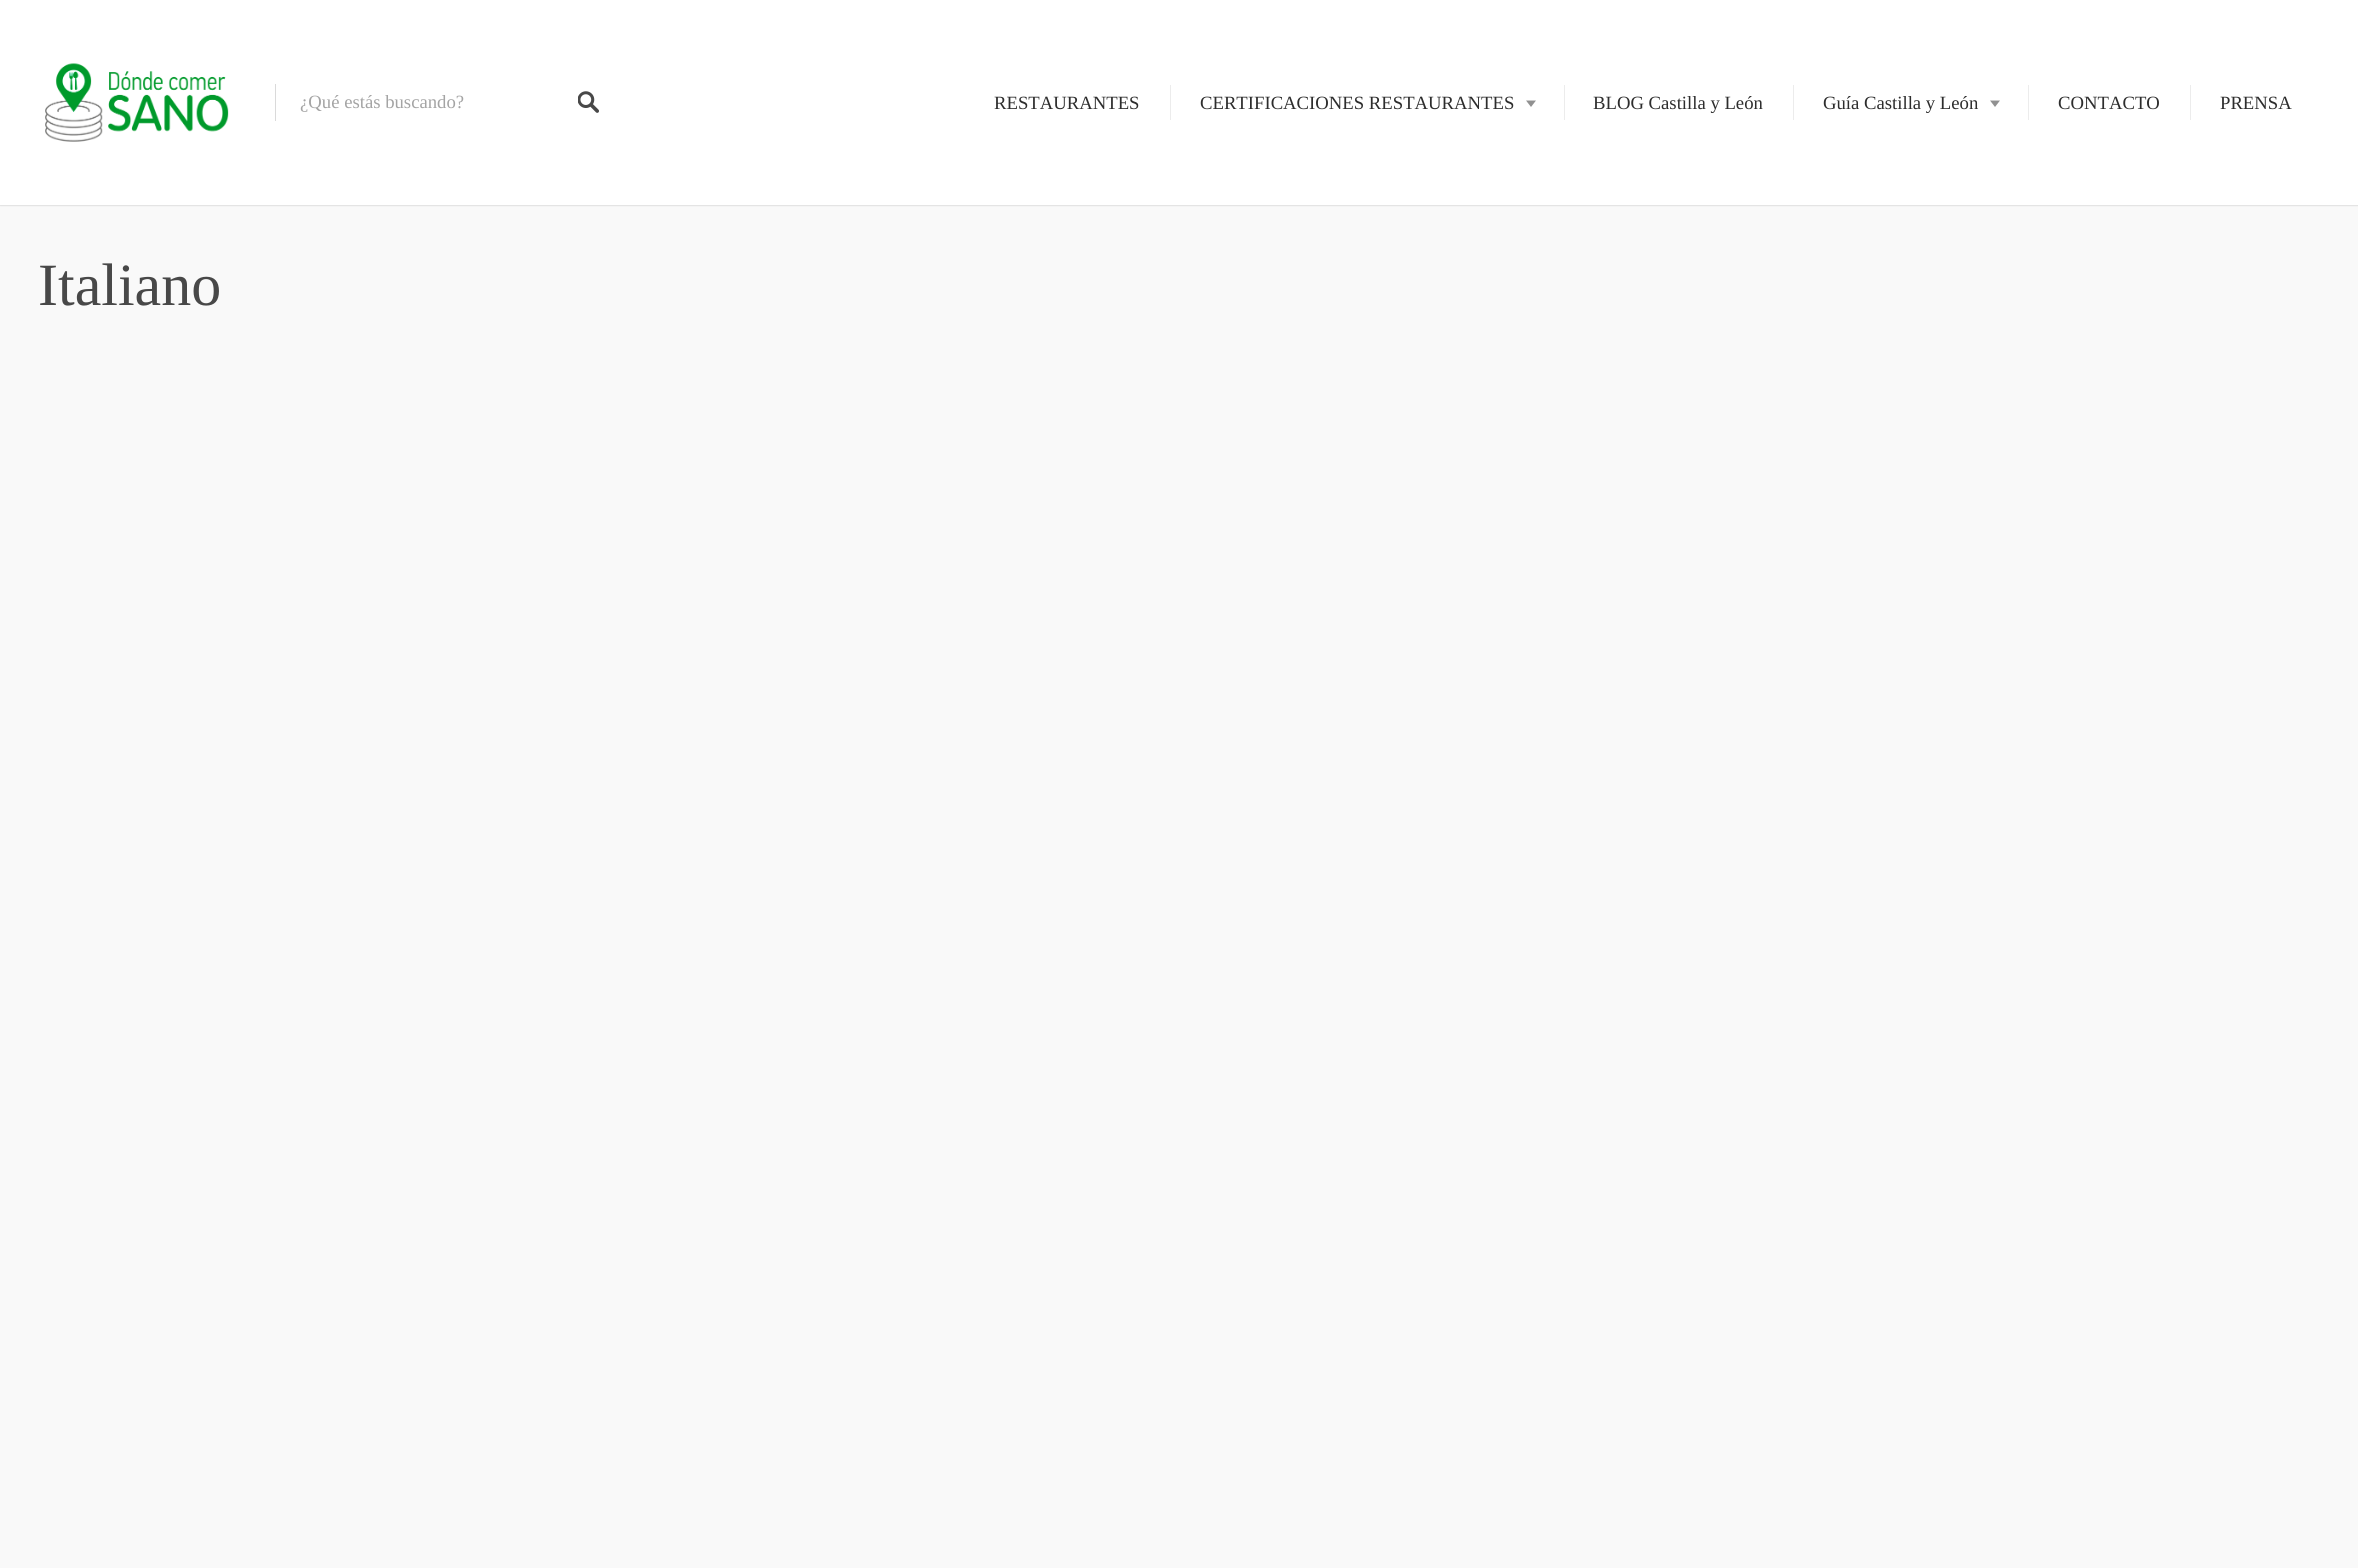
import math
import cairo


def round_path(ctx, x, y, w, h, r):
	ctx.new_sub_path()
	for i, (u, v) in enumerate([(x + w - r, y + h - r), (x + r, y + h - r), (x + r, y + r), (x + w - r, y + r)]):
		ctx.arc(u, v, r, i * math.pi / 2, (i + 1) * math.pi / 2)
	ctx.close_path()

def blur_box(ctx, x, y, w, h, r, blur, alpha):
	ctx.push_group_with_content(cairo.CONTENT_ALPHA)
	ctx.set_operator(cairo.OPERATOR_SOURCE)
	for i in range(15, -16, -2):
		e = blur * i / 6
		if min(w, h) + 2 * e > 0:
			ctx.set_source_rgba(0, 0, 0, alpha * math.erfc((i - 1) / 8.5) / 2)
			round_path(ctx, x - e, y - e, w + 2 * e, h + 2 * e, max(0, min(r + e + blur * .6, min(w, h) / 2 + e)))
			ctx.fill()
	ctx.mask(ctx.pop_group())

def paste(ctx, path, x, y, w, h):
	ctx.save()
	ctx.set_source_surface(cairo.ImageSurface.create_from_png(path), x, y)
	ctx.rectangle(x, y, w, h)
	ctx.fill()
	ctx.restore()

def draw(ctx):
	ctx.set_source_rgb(0.976, 0.976, 0.976)
	ctx.paint()
	ctx.set_source_rgb(0, 0, 0)
	blur_box(ctx, 0, 0, 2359, 205, 0, 1, 0.25)
	ctx.set_source_rgb(1, 1, 1)
	ctx.rectangle(0, 0, 2358, 205)
	ctx.fill()
	paste(ctx, 'media/1.png', 45, 63, 184, 79)
	ctx.set_source_rgb(0.855, 0.855, 0.855)
	ctx.rectangle(275, 84, 1, 37)
	ctx.fill()
	ctx.select_font_face('Liberation Serif')
	ctx.set_font_size(18.7)
	ctx.set_source_rgb(0.643, 0.643, 0.643)
	ctx.move_to(300, 108)
	ctx.show_text('¿Qué estás buscando?')
	paste(ctx, 'media/2.png', 578, 91, 21, 22)
	ctx.set_source_rgb(0.176, 0.176, 0.176)
	ctx.move_to(994, 109)
	ctx.show_text('RESTAURANTES')
	ctx.set_source_rgb(0.925, 0.925, 0.925)
	ctx.rectangle(1170, 85, 1, 35)
	ctx.fill()
	ctx.set_source_rgb(0.176, 0.176, 0.176)
	ctx.move_to(1200, 109)
	ctx.show_text('CERTIFICACIONES RESTAURANTES')
	ctx.set_source_rgb(0.569, 0.569, 0.569)
	ctx.new_path()
	ctx.move_to(1526, 100.5)
	ctx.line_to(1536, 100.5)
	ctx.line_to(1531, 107)
	ctx.close_path()
	ctx.fill()
	ctx.set_source_rgb(0.925, 0.925, 0.925)
	ctx.rectangle(1564, 85, 1, 35)
	ctx.fill()
	ctx.set_source_rgb(0.176, 0.176, 0.176)
	ctx.move_to(1593, 109)
	ctx.show_text('BLOG Castilla y León')
	ctx.set_source_rgb(0.925, 0.925, 0.925)
	ctx.rectangle(1793, 85, 1, 35)
	ctx.fill()
	ctx.set_source_rgb(0.176, 0.176, 0.176)
	ctx.move_to(1823, 109)
	ctx.show_text('Guía Castilla y León')
	ctx.set_source_rgb(0.569, 0.569, 0.569)
	ctx.new_path()
	ctx.move_to(1990, 100.5)
	ctx.line_to(2000, 100.5)
	ctx.line_to(1995, 107)
	ctx.close_path()
	ctx.fill()
	ctx.set_source_rgb(0.925, 0.925, 0.925)
	ctx.rectangle(2028, 85, 1, 35)
	ctx.fill()
	ctx.set_source_rgb(0.176, 0.176, 0.176)
	ctx.move_to(2058, 109)
	ctx.show_text('CONTACTO')
	ctx.set_source_rgb(0.925, 0.925, 0.925)
	ctx.rectangle(2190, 85, 1, 35)
	ctx.fill()
	ctx.set_source_rgb(0.176, 0.176, 0.176)
	ctx.move_to(2220, 109)
	ctx.show_text('PRENSA')
	ctx.set_font_size(60)
	ctx.set_source_rgb(0.282, 0.282, 0.282)
	ctx.move_to(38, 305)
	ctx.show_text('Italiano')


surface = cairo.ImageSurface(cairo.FORMAT_RGB24, 2358, 1568)
ctx = cairo.Context(surface)
options = cairo.FontOptions()
options.set_hint_metrics(cairo.HINT_METRICS_OFF)
options.set_hint_style(cairo.HINT_STYLE_NONE)
ctx.set_font_options(options)
ctx.set_miter_limit(4)
draw(ctx)
surface.write_to_png('image.png')
